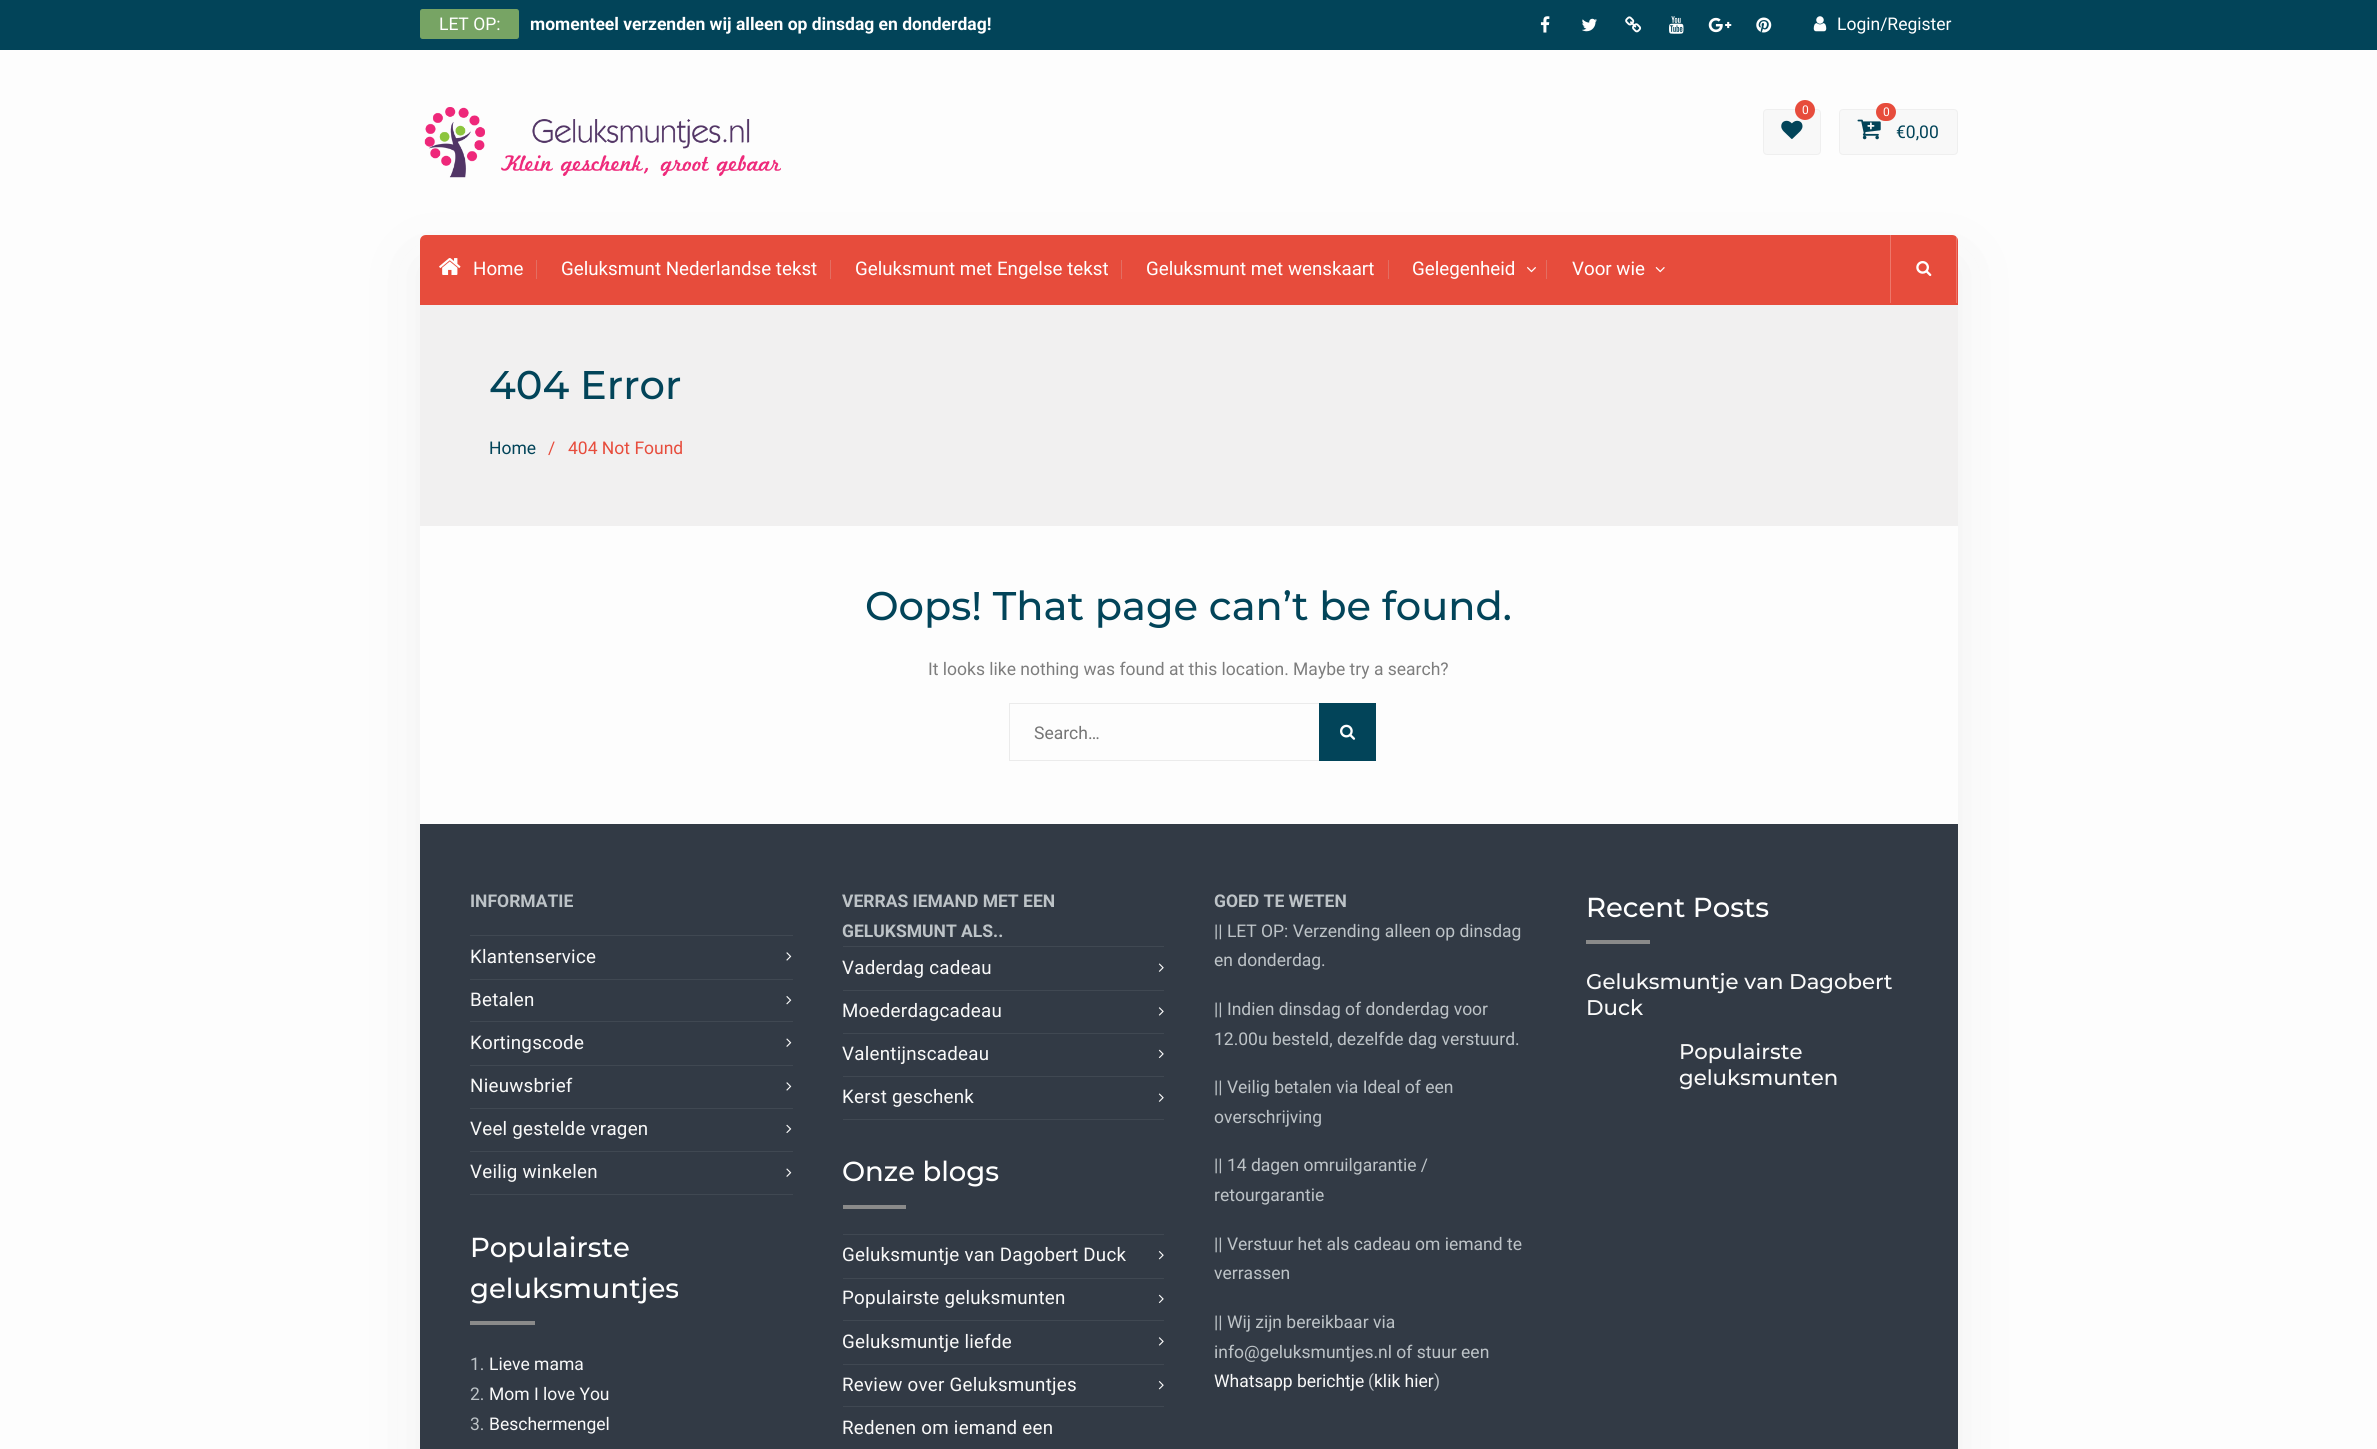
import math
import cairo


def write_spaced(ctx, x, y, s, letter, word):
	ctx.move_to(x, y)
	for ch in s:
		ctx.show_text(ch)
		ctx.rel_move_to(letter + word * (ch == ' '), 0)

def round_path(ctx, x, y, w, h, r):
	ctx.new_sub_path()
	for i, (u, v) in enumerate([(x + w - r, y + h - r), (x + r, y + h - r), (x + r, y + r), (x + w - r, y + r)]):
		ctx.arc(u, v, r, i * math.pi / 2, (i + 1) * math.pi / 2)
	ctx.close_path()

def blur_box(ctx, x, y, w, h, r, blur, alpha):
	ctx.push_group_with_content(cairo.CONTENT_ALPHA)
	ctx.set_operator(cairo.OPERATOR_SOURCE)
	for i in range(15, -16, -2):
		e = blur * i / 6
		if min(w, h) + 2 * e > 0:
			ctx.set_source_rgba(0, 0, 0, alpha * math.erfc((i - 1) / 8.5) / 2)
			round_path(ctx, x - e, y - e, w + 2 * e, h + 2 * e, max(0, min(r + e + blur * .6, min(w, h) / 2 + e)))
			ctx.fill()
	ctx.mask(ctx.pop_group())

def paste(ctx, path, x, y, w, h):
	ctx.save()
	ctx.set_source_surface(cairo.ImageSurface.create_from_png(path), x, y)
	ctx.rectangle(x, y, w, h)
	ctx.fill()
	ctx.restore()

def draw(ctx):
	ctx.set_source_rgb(0.992, 0.992, 0.992)
	ctx.paint()
	ctx.set_source_rgb(0.008, 0.267, 0.349)
	ctx.rectangle(0, 0, 2377, 50)
	ctx.fill()
	ctx.set_source_rgb(0.467, 0.643, 0.392)
	round_path(ctx, 420, 9, 99, 30, 2.5)
	ctx.fill()
	ctx.select_font_face('Roboto')
	ctx.set_font_size(17.5)
	ctx.set_source_rgb(1, 1, 1)
	ctx.move_to(439, 30)
	ctx.show_text('LET OP:')
	ctx.select_font_face('Roboto', cairo.FONT_SLANT_NORMAL, cairo.FONT_WEIGHT_BOLD)
	ctx.move_to(530, 30)
	ctx.show_text('momenteel verzenden wij alleen op dinsdag en donderdag!')
	paste(ctx, 'media/1.png', 1540, 16, 10, 17)
	paste(ctx, 'media/2.png', 1582, 18, 15, 14)
	paste(ctx, 'media/3.png', 1625, 16, 17, 17)
	paste(ctx, 'media/4.png', 1669, 16, 15, 18)
	paste(ctx, 'media/5.png', 1708, 17, 24, 16)
	paste(ctx, 'media/6.png', 1756, 17, 16, 16)
	paste(ctx, 'media/7.png', 1813, 16, 14, 16)
	ctx.select_font_face('Roboto')
	ctx.move_to(1837, 30)
	ctx.show_text('Login/Register')
	paste(ctx, 'media/8.png', 424, 107, 357, 71)
	ctx.set_source_rgb(0.969, 0.969, 0.969)
	round_path(ctx, 1763.5, 109.5, 57, 45, 3.5)
	ctx.fill_preserve()
	ctx.set_source_rgb(0.937, 0.937, 0.937)
	ctx.set_line_width(1)
	ctx.stroke()
	ctx.set_source_rgb(0.906, 0.298, 0.235)
	ctx.arc(1805, 110, 10, 0, 2 * math.pi)
	ctx.fill()
	ctx.set_font_size(12)
	ctx.set_source_rgb(1, 1, 1)
	ctx.move_to(1802, 114)
	ctx.show_text('0')
	paste(ctx, 'media/9.png', 1781, 120, 22, 19)
	ctx.set_source_rgb(0.969, 0.969, 0.969)
	round_path(ctx, 1839.5, 109.5, 118, 45, 3.5)
	ctx.fill_preserve()
	ctx.set_source_rgb(0.937, 0.937, 0.937)
	ctx.stroke()
	paste(ctx, 'media/10.png', 1857, 119, 24, 21)
	ctx.set_source_rgb(0.906, 0.298, 0.235)
	round_path(ctx, 1876, 103, 20, 18, 9)
	ctx.fill()
	ctx.set_source_rgb(1, 1, 1)
	ctx.move_to(1883, 116)
	ctx.show_text('0')
	ctx.set_font_size(17.5)
	ctx.set_source_rgb(0.008, 0.267, 0.349)
	ctx.move_to(1896, 138)
	ctx.show_text('€0,00')
	ctx.set_source_rgb(0.937, 0.937, 0.937)
	blur_box(ctx, 420, 263, 1538, 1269, 0, 27.5, 1)
	ctx.set_source_rgb(0.906, 0.298, 0.235)
	ctx.new_path()
	ctx.move_to(426, 235)
	ctx.line_to(1952, 235)
	ctx.curve_to(1955.5, 235, 1958, 237.5, 1958, 241)
	ctx.line_to(1958, 305)
	ctx.line_to(420, 305)
	ctx.line_to(420, 241)
	ctx.curve_to(420, 237.5, 422.5, 235, 426, 235)
	ctx.close_path()
	ctx.fill()
	paste(ctx, 'media/11.png', 439, 258, 22, 17)
	ctx.set_font_size(18.75)
	ctx.set_source_rgb(1, 1, 1)
	ctx.move_to(473, 275)
	ctx.show_text('Home')
	ctx.set_source_rgb(0.89, 0.431, 0.384)
	ctx.rectangle(536, 260, 1, 19)
	ctx.fill()
	ctx.set_source_rgb(1, 1, 1)
	ctx.move_to(561, 275)
	ctx.show_text('Geluksmunt Nederlandse tekst')
	ctx.set_source_rgb(0.89, 0.431, 0.384)
	ctx.rectangle(830, 260, 1, 19)
	ctx.fill()
	ctx.set_source_rgb(1, 1, 1)
	ctx.move_to(855, 275)
	ctx.show_text('Geluksmunt met Engelse tekst')
	ctx.set_source_rgb(0.89, 0.431, 0.384)
	ctx.rectangle(1121, 260, 1, 19)
	ctx.fill()
	ctx.set_source_rgb(1, 1, 1)
	ctx.move_to(1146, 275)
	ctx.show_text('Geluksmunt met wenskaart')
	ctx.set_source_rgb(0.89, 0.431, 0.384)
	ctx.rectangle(1388, 260, 1, 19)
	ctx.fill()
	ctx.set_source_rgb(1, 1, 1)
	ctx.move_to(1412, 275)
	ctx.show_text('Gelegenheid')
	paste(ctx, 'media/12.png', 1527, 267, 9, 6)
	ctx.set_source_rgb(0.89, 0.431, 0.384)
	ctx.rectangle(1546, 260, 1, 19)
	ctx.fill()
	ctx.set_source_rgb(1, 1, 1)
	ctx.move_to(1572, 275)
	ctx.show_text('Voor wie')
	paste(ctx, 'media/13.png', 1655, 267, 10, 6)
	ctx.set_source_rgba(1, 1, 1, 0.24)
	ctx.rectangle(1956, 235, 1, 68)
	ctx.fill()
	ctx.set_source_rgb(0.929, 0.467, 0.42)
	ctx.rectangle(1890, 235, 1, 68)
	ctx.fill()
	paste(ctx, 'media/14.png', 1916, 261, 16, 16)
	ctx.set_source_rgb(0.945, 0.941, 0.941)
	ctx.rectangle(420, 305, 1538, 221)
	ctx.fill()
	ctx.select_font_face('Montserrat Medium')
	ctx.set_font_size(40)
	ctx.set_source_rgb(0.008, 0.267, 0.349)
	ctx.move_to(489, 399)
	ctx.show_text('404 Error')
	ctx.select_font_face('Roboto')
	ctx.set_font_size(17.5)
	ctx.move_to(489, 454)
	ctx.show_text('Home')
	ctx.set_source_rgb(0.906, 0.298, 0.235)
	ctx.move_to(548, 454)
	ctx.show_text('/')
	ctx.move_to(568, 454)
	ctx.show_text('404 Not Found')
	ctx.set_source_rgb(0.992, 0.992, 0.992)
	ctx.rectangle(420, 526, 1538, 298)
	ctx.fill()
	ctx.select_font_face('Montserrat Medium')
	ctx.set_font_size(40)
	ctx.set_source_rgb(0.008, 0.267, 0.349)
	ctx.move_to(865, 620)
	ctx.show_text('Oops! That page can’t be found.')
	ctx.select_font_face('Roboto')
	ctx.set_font_size(17.5)
	ctx.set_source_rgb(0.49, 0.49, 0.49)
	ctx.move_to(928, 675)
	ctx.show_text('It looks like nothing was found at this location. Maybe try a search?')
	ctx.rectangle(1009.5, 703.5, 360, 57)
	ctx.set_source_rgb(0.918, 0.918, 0.918)
	ctx.stroke()
	ctx.set_source_rgb(0.459, 0.459, 0.459)
	ctx.move_to(1034, 739)
	ctx.show_text('Search…')
	ctx.set_source_rgb(0.008, 0.267, 0.349)
	ctx.rectangle(1319, 703, 57, 58)
	ctx.fill()
	paste(ctx, 'media/15.png', 1340, 724, 16, 16)
	ctx.set_source_rgb(0.196, 0.227, 0.271)
	ctx.rectangle(420, 824, 1538, 625)
	ctx.fill()
	ctx.select_font_face('Roboto', cairo.FONT_SLANT_NORMAL, cairo.FONT_WEIGHT_BOLD)
	ctx.set_source_rgb(0.741, 0.765, 0.78)
	ctx.move_to(470, 907)
	ctx.show_text('INFORMATIE')
	ctx.set_source_rgb(0.251, 0.282, 0.322)
	ctx.rectangle(470, 935, 323, 1)
	ctx.fill()
	ctx.select_font_face('Roboto')
	ctx.set_font_size(18.75)
	ctx.set_source_rgb(0.976, 0.976, 0.976)
	write_spaced(ctx, 470, 963, 'Klantenservice', 0.25, 0)
	paste(ctx, 'media/16.png', 786, 952, 6, 9)
	ctx.set_source_rgb(0.251, 0.282, 0.322)
	ctx.rectangle(470, 979, 323, 1)
	ctx.fill()
	ctx.set_source_rgb(0.976, 0.976, 0.976)
	write_spaced(ctx, 470, 1006, 'Betalen', 0.25, 0)
	paste(ctx, 'media/17.png', 786, 996, 6, 9)
	ctx.set_source_rgb(0.251, 0.282, 0.322)
	ctx.rectangle(470, 1021, 323, 1)
	ctx.fill()
	ctx.set_source_rgb(0.976, 0.976, 0.976)
	write_spaced(ctx, 470, 1049, 'Kortingscode', 0.25, 0)
	paste(ctx, 'media/18.png', 786, 1038, 6, 9)
	ctx.set_source_rgb(0.251, 0.282, 0.322)
	ctx.rectangle(470, 1065, 323, 1)
	ctx.fill()
	ctx.set_source_rgb(0.976, 0.976, 0.976)
	write_spaced(ctx, 470, 1092, 'Nieuwsbrief', 0.25, 0)
	paste(ctx, 'media/16.png', 786, 1082, 6, 9)
	ctx.set_source_rgb(0.251, 0.282, 0.322)
	ctx.rectangle(470, 1108, 323, 1)
	ctx.fill()
	ctx.set_source_rgb(0.976, 0.976, 0.976)
	write_spaced(ctx, 470, 1135, 'Veel gestelde vragen', 0.25, 0)
	paste(ctx, 'media/19.png', 786, 1124, 6, 9)
	ctx.set_source_rgb(0.251, 0.282, 0.322)
	ctx.rectangle(470, 1151, 323, 1)
	ctx.fill()
	ctx.rectangle(470, 1194, 323, 1)
	ctx.fill()
	ctx.set_source_rgb(0.976, 0.976, 0.976)
	write_spaced(ctx, 470, 1178, 'Veilig winkelen', 0.25, 0)
	paste(ctx, 'media/18.png', 786, 1168, 6, 9)
	ctx.select_font_face('Montserrat Medium')
	ctx.set_font_size(27.5)
	ctx.set_source_rgb(1, 1, 1)
	ctx.move_to(470, 1257)
	ctx.show_text('Populairste')
	ctx.move_to(470, 1298)
	ctx.show_text('geluksmuntjes')
	ctx.set_source_rgb(0.541, 0.541, 0.541)
	ctx.rectangle(470, 1321, 65, 4)
	ctx.fill()
	ctx.select_font_face('Roboto')
	ctx.set_font_size(17.5)
	ctx.set_source_rgb(0.741, 0.765, 0.78)
	ctx.move_to(470, 1370)
	ctx.show_text('1.')
	ctx.set_source_rgb(0.976, 0.976, 0.976)
	ctx.move_to(489, 1370)
	ctx.show_text('Lieve mama')
	ctx.set_source_rgb(0.741, 0.765, 0.78)
	ctx.move_to(470, 1400)
	ctx.show_text('2.')
	ctx.set_source_rgb(0.976, 0.976, 0.976)
	ctx.move_to(489, 1400)
	ctx.show_text('Mom I love You')
	ctx.set_source_rgb(0.741, 0.765, 0.78)
	ctx.move_to(470, 1430)
	ctx.show_text('3.')
	ctx.set_source_rgb(0.976, 0.976, 0.976)
	ctx.move_to(489, 1430)
	ctx.show_text('Beschermengel')
	ctx.select_font_face('Roboto', cairo.FONT_SLANT_NORMAL, cairo.FONT_WEIGHT_BOLD)
	ctx.set_source_rgb(0.741, 0.765, 0.78)
	ctx.move_to(842, 907)
	ctx.show_text('VERRAS IEMAND MET EEN')
	ctx.move_to(842, 937)
	ctx.show_text('GELUKSMUNT ALS..')
	ctx.set_source_rgb(0.251, 0.282, 0.322)
	ctx.rectangle(843, 946, 321, 1)
	ctx.fill()
	ctx.select_font_face('Roboto')
	ctx.set_font_size(18.75)
	ctx.set_source_rgb(0.976, 0.976, 0.976)
	write_spaced(ctx, 842, 974, 'Vaderdag cadeau', 0.25, 0)
	paste(ctx, 'media/20.png', 1158, 963, 6, 9)
	ctx.set_source_rgb(0.251, 0.282, 0.322)
	ctx.rectangle(843, 990, 321, 1)
	ctx.fill()
	ctx.set_source_rgb(0.976, 0.976, 0.976)
	write_spaced(ctx, 842, 1017, 'Moederdagcadeau', 0.25, 0)
	paste(ctx, 'media/21.png', 1158, 1007, 6, 9)
	ctx.set_source_rgb(0.251, 0.282, 0.322)
	ctx.rectangle(843, 1033, 321, 1)
	ctx.fill()
	ctx.set_source_rgb(0.976, 0.976, 0.976)
	write_spaced(ctx, 842, 1060, 'Valentijnscadeau', 0.25, 0)
	paste(ctx, 'media/22.png', 1158, 1049, 6, 10)
	ctx.set_source_rgb(0.251, 0.282, 0.322)
	ctx.rectangle(843, 1076, 321, 1)
	ctx.fill()
	ctx.rectangle(843, 1119, 321, 1)
	ctx.fill()
	ctx.set_source_rgb(0.976, 0.976, 0.976)
	write_spaced(ctx, 842, 1103, 'Kerst geschenk', 0.25, 0)
	paste(ctx, 'media/20.png', 1158, 1093, 6, 9)
	ctx.select_font_face('Montserrat Medium')
	ctx.set_font_size(27.5)
	ctx.set_source_rgb(1, 1, 1)
	ctx.move_to(842, 1181)
	ctx.show_text('Onze blogs')
	ctx.set_source_rgb(0.541, 0.541, 0.541)
	ctx.rectangle(843, 1205, 63, 4)
	ctx.fill()
	ctx.set_source_rgb(0.251, 0.282, 0.322)
	ctx.rectangle(843, 1234, 321, 1)
	ctx.fill()
	ctx.select_font_face('Roboto')
	ctx.set_font_size(18.75)
	ctx.set_source_rgb(0.976, 0.976, 0.976)
	write_spaced(ctx, 842, 1261, 'Geluksmuntje van Dagobert Duck', 0.25, 0)
	paste(ctx, 'media/23.png', 1158, 1251, 6, 9)
	ctx.set_source_rgb(0.251, 0.282, 0.322)
	ctx.rectangle(843, 1278, 321, 1)
	ctx.fill()
	ctx.set_source_rgb(0.976, 0.976, 0.976)
	write_spaced(ctx, 842, 1304, 'Populairste geluksmunten', 0.25, 0)
	paste(ctx, 'media/22.png', 1158, 1294, 6, 10)
	ctx.set_source_rgb(0.251, 0.282, 0.322)
	ctx.rectangle(843, 1320, 321, 1)
	ctx.fill()
	ctx.set_source_rgb(0.976, 0.976, 0.976)
	write_spaced(ctx, 842, 1348, 'Geluksmuntje liefde', 0.25, 0)
	paste(ctx, 'media/21.png', 1158, 1337, 6, 9)
	ctx.set_source_rgb(0.251, 0.282, 0.322)
	ctx.rectangle(843, 1364, 321, 1)
	ctx.fill()
	ctx.set_source_rgb(0.976, 0.976, 0.976)
	write_spaced(ctx, 842, 1391, 'Review over Geluksmuntjes', 0.25, 0)
	paste(ctx, 'media/23.png', 1158, 1381, 6, 9)
	ctx.set_source_rgb(0.251, 0.282, 0.322)
	ctx.rectangle(843, 1406, 321, 1)
	ctx.fill()
	ctx.set_source_rgb(0.976, 0.976, 0.976)
	write_spaced(ctx, 842, 1434, 'Redenen om iemand een', 0.25, 0)
	ctx.select_font_face('Roboto', cairo.FONT_SLANT_NORMAL, cairo.FONT_WEIGHT_BOLD)
	ctx.set_font_size(17.5)
	ctx.set_source_rgb(0.741, 0.765, 0.78)
	ctx.move_to(1214, 907)
	ctx.show_text('GOED TE WETEN')
	ctx.select_font_face('Roboto')
	for x, y, s in [
		(1214, 937, '|| LET OP: Verzending alleen op dinsdag'),
		(1214, 966, 'en donderdag.'),
		(1214, 1015, '|| Indien dinsdag of donderdag voor'),
		(1214, 1045, '12.00u besteld, dezelfde dag verstuurd.'),
		(1214, 1093, '|| Veilig betalen via Ideal of een'),
		(1214, 1123, 'overschrijving'),
		(1214, 1171, '|| 14 dagen omruilgarantie /'),
		(1214, 1201, 'retourgarantie'),
		(1214, 1250, '|| Verstuur het als cadeau om iemand te'),
		(1214, 1279, 'verrassen'),
		(1214, 1328, '|| Wij zijn bereikbaar via'),
		(1214, 1358, 'info@geluksmuntjes.nl of stuur een'),
	]:
		ctx.move_to(x, y)
		ctx.show_text(s)
	ctx.set_source_rgb(0.976, 0.976, 0.976)
	ctx.move_to(1214, 1387)
	ctx.show_text('Whatsapp berichtje')
	ctx.set_source_rgb(0.741, 0.765, 0.78)
	ctx.move_to(1368, 1387)
	ctx.show_text('(')
	ctx.set_source_rgb(0.976, 0.976, 0.976)
	ctx.move_to(1374, 1387)
	ctx.show_text('klik hier')
	ctx.set_source_rgb(0.741, 0.765, 0.78)
	ctx.move_to(1434, 1387)
	ctx.show_text(')')
	ctx.select_font_face('Montserrat Medium')
	ctx.set_font_size(27.5)
	ctx.set_source_rgb(1, 1, 1)
	ctx.move_to(1586, 917)
	ctx.show_text('Recent Posts')
	ctx.set_source_rgb(0.541, 0.541, 0.541)
	ctx.rectangle(1586, 940, 64, 4)
	ctx.fill()
	ctx.set_font_size(21.25)
	ctx.set_source_rgb(0.976, 0.976, 0.976)
	for x, y, s in [
		(1586, 989, 'Geluksmuntje van Dagobert'),
		(1586, 1015, 'Duck'),
		(1679, 1059, 'Populairste'),
		(1679, 1085, 'geluksmunten'),
	]:
		ctx.move_to(x, y)
		ctx.show_text(s)


surface = cairo.ImageSurface(cairo.FORMAT_RGB24, 2377, 1449)
ctx = cairo.Context(surface)
options = cairo.FontOptions()
options.set_hint_metrics(cairo.HINT_METRICS_OFF)
options.set_hint_style(cairo.HINT_STYLE_NONE)
ctx.set_font_options(options)
ctx.set_miter_limit(4)
draw(ctx)
surface.write_to_png('image.png')
